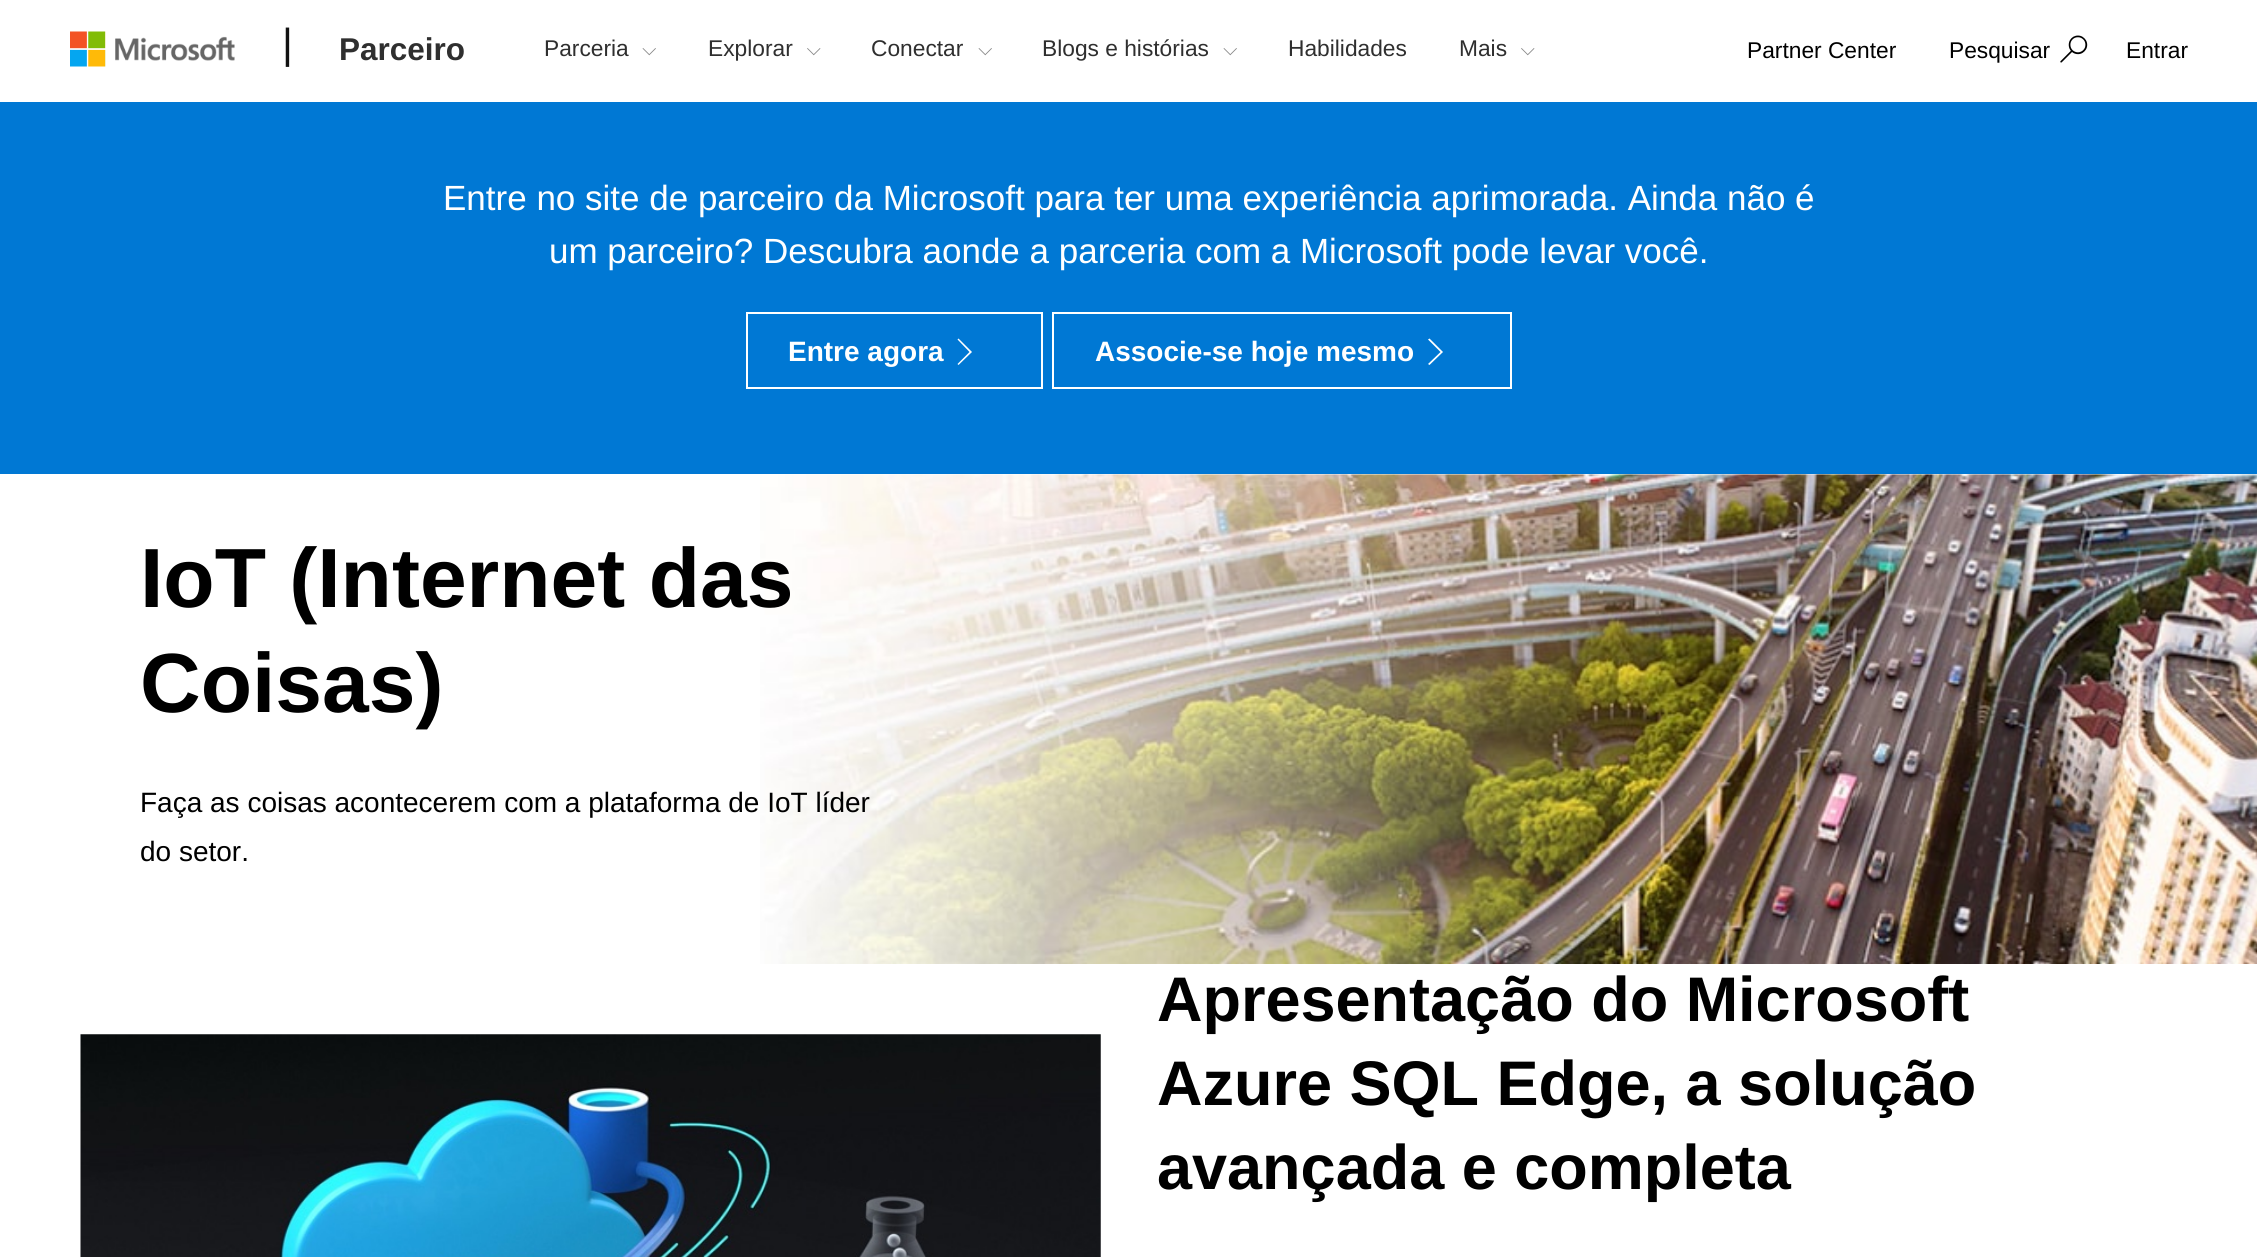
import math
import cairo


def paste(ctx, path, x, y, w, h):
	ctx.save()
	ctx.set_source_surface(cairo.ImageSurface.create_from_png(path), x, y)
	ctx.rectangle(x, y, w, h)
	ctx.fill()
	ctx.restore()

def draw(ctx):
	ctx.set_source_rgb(1, 1, 1)
	ctx.paint()
	paste(ctx, 'media/1.png', 70, 31, 165, 36)
	ctx.select_font_face('Liberation Sans')
	ctx.set_font_size(42)
	ctx.set_source_rgb(0.067, 0.067, 0.067)
	ctx.move_to(282, 58)
	ctx.show_text('|')
	ctx.select_font_face('Liberation Sans', cairo.FONT_SLANT_NORMAL, cairo.FONT_WEIGHT_BOLD)
	ctx.set_font_size(31.5)
	ctx.set_source_rgb(0.184, 0.184, 0.184)
	ctx.move_to(339, 60)
	ctx.show_text('Parceiro')
	ctx.select_font_face('Liberation Sans')
	ctx.set_font_size(22.75)
	ctx.move_to(544, 56)
	ctx.show_text('Parceria')
	paste(ctx, 'media/2.png', 642, 48, 14, 8)
	ctx.move_to(708, 56)
	ctx.show_text('Explorar')
	paste(ctx, 'media/3.png', 807, 48, 14, 8)
	ctx.move_to(871, 56)
	ctx.show_text('Conectar')
	paste(ctx, 'media/2.png', 978, 48, 14, 8)
	ctx.move_to(1042, 56)
	ctx.show_text('Blogs e histórias')
	paste(ctx, 'media/2.png', 1223, 48, 14, 8)
	ctx.move_to(1288, 56)
	ctx.show_text('Habilidades')
	ctx.move_to(1459, 56)
	ctx.show_text('Mais')
	paste(ctx, 'media/3.png', 1521, 48, 14, 8)
	ctx.set_source_rgb(0, 0, 0)
	ctx.move_to(1747, 58)
	ctx.show_text('Partner Center')
	ctx.move_to(1949, 58)
	ctx.show_text('Pesquisar')
	paste(ctx, 'media/4.png', 2060, 35, 28, 28)
	ctx.move_to(2126, 58)
	ctx.show_text('Entrar')
	ctx.set_source_rgb(0, 0.471, 0.831)
	ctx.rectangle(0, 102, 2257, 372)
	ctx.fill()
	ctx.set_font_size(35)
	ctx.set_source_rgb(1, 1, 1)
	ctx.move_to(443, 210)
	ctx.show_text('Entre no site de parceiro da Microsoft para ter uma experiência aprimorada. Ainda não é')
	ctx.move_to(549, 263)
	ctx.show_text('um parceiro? Descubra aonde a parceria com a Microsoft pode levar você.')
	ctx.rectangle(747, 313, 295, 75)
	ctx.stroke()
	ctx.select_font_face('Liberation Sans', cairo.FONT_SLANT_NORMAL, cairo.FONT_WEIGHT_BOLD)
	ctx.set_font_size(28)
	ctx.move_to(788, 361)
	ctx.show_text('Entre agora')
	ctx.new_path()
	ctx.move_to(969.5, 352)
	ctx.line_to(957.5, 339.5)
	ctx.line_to(958.5, 338.5)
	ctx.line_to(972, 352)
	ctx.line_to(958.5, 365)
	ctx.line_to(957.5, 364)
	ctx.close_path()
	ctx.fill()
	ctx.rectangle(1053, 313, 458, 75)
	ctx.stroke()
	ctx.move_to(1095, 361)
	ctx.show_text('Associe-se hoje mesmo')
	ctx.new_path()
	ctx.move_to(1440.5, 352)
	ctx.line_to(1428, 339.5)
	ctx.line_to(1429.5, 338.5)
	ctx.line_to(1443, 352)
	ctx.line_to(1429.5, 365)
	ctx.line_to(1428, 364)
	ctx.close_path()
	ctx.fill()
	paste(ctx, 'media/5.png', 760, 474, 1497, 490)
	ctx.set_font_size(84)
	ctx.set_source_rgb(0, 0, 0)
	ctx.move_to(140, 607)
	ctx.show_text('IoT (Internet das')
	ctx.move_to(140, 712)
	ctx.show_text('Coisas)')
	ctx.select_font_face('Liberation Sans')
	ctx.set_font_size(28)
	ctx.move_to(140, 812)
	ctx.show_text('Faça as coisas acontecerem com a plataforma de IoT líder')
	ctx.move_to(140, 861)
	ctx.show_text('do setor.')
	paste(ctx, 'media/6.png', 80, 1034, 1021, 223)
	ctx.select_font_face('Liberation Sans', cairo.FONT_SLANT_NORMAL, cairo.FONT_WEIGHT_BOLD)
	ctx.set_font_size(63)
	for x, y, s in [
		(1157, 1021, 'Apresentação do Microsoft'),
		(1157, 1105, 'Azure SQL Edge, a solução'),
		(1157, 1189, 'avançada e completa'),
	]:
		ctx.move_to(x, y)
		ctx.show_text(s)


surface = cairo.ImageSurface(cairo.FORMAT_RGB24, 2257, 1257)
ctx = cairo.Context(surface)
options = cairo.FontOptions()
options.set_hint_metrics(cairo.HINT_METRICS_OFF)
options.set_hint_style(cairo.HINT_STYLE_NONE)
ctx.set_font_options(options)
ctx.set_miter_limit(4)
draw(ctx)
surface.write_to_png('image.png')
